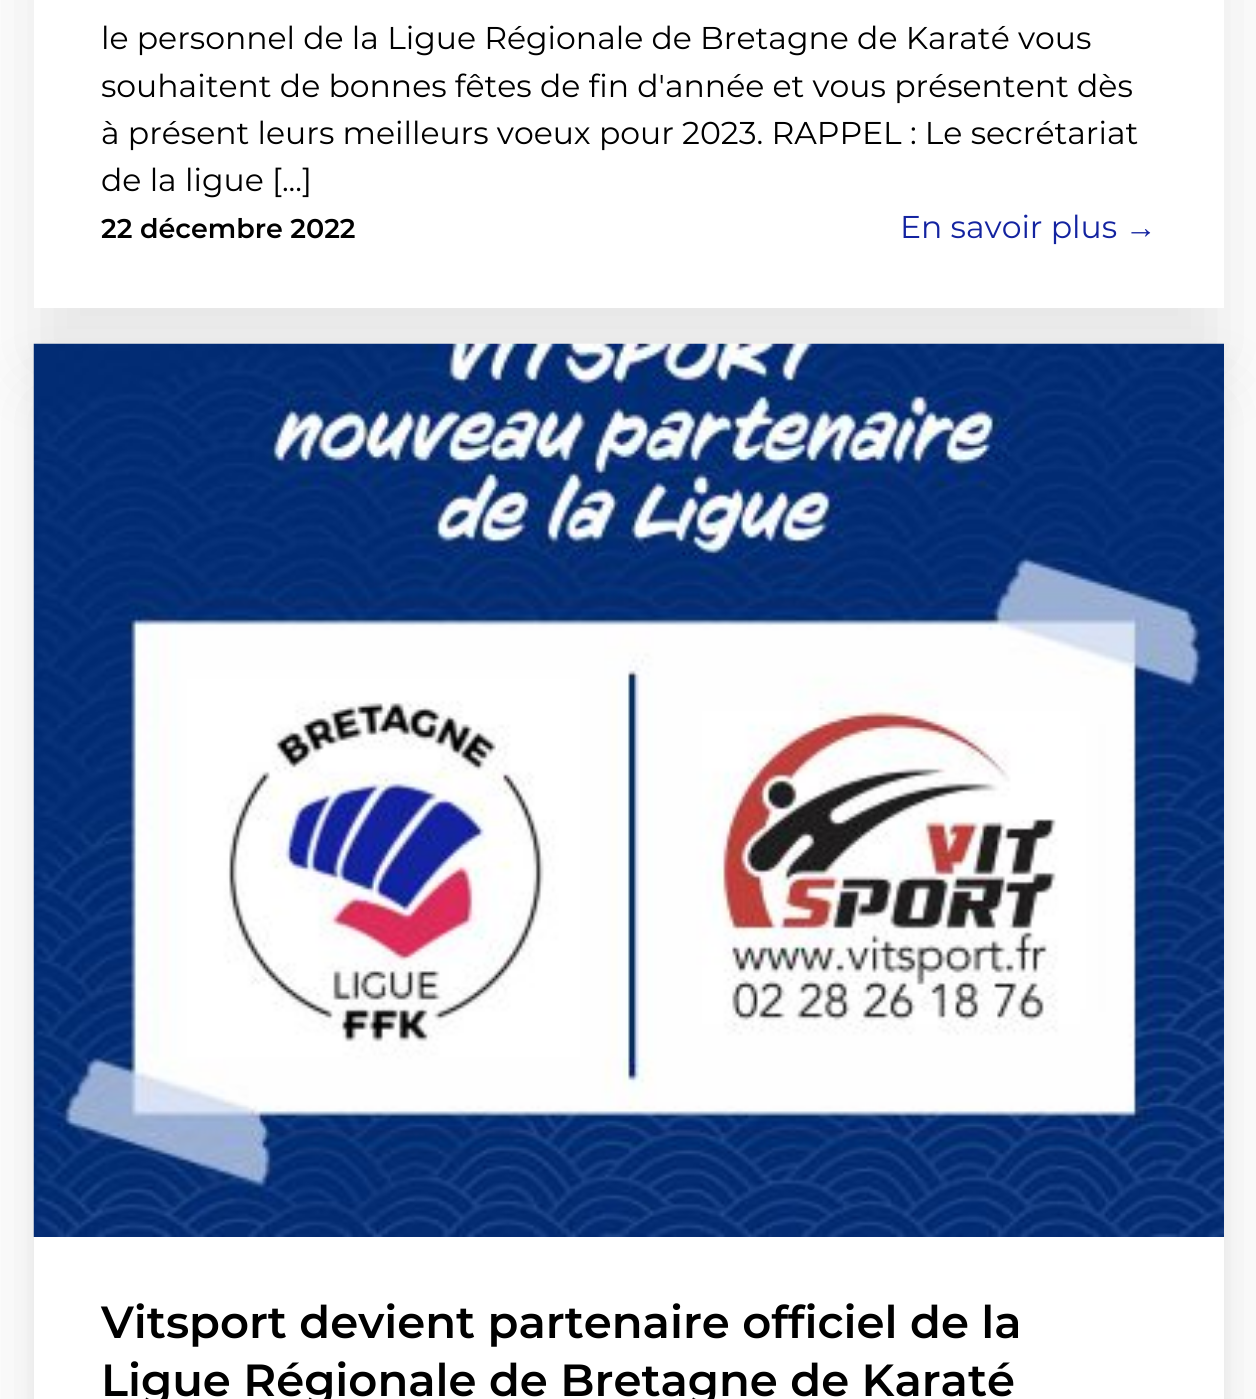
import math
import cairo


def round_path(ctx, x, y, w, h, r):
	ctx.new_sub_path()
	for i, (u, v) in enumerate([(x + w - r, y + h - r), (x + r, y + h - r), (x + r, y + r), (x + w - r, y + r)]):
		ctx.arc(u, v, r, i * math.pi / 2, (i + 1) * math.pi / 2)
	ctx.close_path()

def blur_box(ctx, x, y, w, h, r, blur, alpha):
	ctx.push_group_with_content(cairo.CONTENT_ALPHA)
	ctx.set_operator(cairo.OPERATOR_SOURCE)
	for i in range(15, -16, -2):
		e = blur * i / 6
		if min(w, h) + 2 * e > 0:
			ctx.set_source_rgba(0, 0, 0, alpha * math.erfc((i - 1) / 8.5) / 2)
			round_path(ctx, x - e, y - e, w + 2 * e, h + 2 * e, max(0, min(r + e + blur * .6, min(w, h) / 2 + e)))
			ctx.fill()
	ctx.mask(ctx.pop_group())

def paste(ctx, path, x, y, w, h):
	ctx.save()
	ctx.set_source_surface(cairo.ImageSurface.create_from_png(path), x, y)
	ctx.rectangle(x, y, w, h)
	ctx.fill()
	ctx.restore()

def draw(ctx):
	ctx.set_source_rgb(1, 1, 1)
	ctx.paint()
	ctx.save()
	ctx.set_fill_rule(cairo.FILL_RULE_EVEN_ODD)
	ctx.new_path()
	ctx.move_to(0, 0)
	ctx.line_to(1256, 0)
	ctx.line_to(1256, 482)
	ctx.line_to(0, 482)
	ctx.close_path()
	ctx.move_to(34, -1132)
	ctx.line_to(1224, -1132)
	ctx.line_to(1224, 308)
	ctx.line_to(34, 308)
	ctx.close_path()
	ctx.clip()
	ctx.set_source_rgb(0, 0, 0)
	blur_box(ctx, 34, -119, 1190, 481, 0, 39.5, 0.1)
	ctx.restore()
	ctx.select_font_face('Montserrat')
	ctx.set_font_size(31.5)
	ctx.set_source_rgb(0, 0, 0)
	for x, y, s in [
		(101, 49, 'le personnel de la Ligue Régionale de Bretagne de Karaté vous'),
		(101, 97, 'souhaitent de bonnes fêtes de fin d\'année et vous présentent dès'),
		(101, 144, 'à présent leurs meilleurs voeux pour 2023. RAPPEL : Le secrétariat'),
		(101, 191, 'de la ligue [...]'),
	]:
		ctx.move_to(x, y)
		ctx.show_text(s)
	ctx.select_font_face('Montserrat SemiBold')
	ctx.set_font_size(27)
	ctx.move_to(101, 238)
	ctx.show_text('22 décembre 2022')
	ctx.select_font_face('Montserrat')
	ctx.set_font_size(31.5)
	ctx.set_source_rgb(0.078, 0.137, 0.627)
	ctx.move_to(900, 238)
	ctx.show_text('En savoir plus')
	ctx.select_font_face('Liberation Sans')
	ctx.move_to(1125, 238)
	ctx.show_text('→')
	ctx.set_source_rgb(0, 0, 0)
	blur_box(ctx, 34, 398, 1190, 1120, 0, 39.5, 0.1)
	blur_box(ctx, 34, 353, 1190, 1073, 0, 9, 0.05)
	ctx.set_source_rgb(1, 1, 1)
	ctx.rectangle(34, 1237, 1190, 162)
	ctx.fill()
	paste(ctx, 'media/1.png', 33, 343, 1191, 894)
	ctx.select_font_face('Montserrat SemiBold')
	ctx.set_font_size(45)
	ctx.set_source_rgb(0, 0, 0)
	ctx.move_to(101, 1338)
	ctx.show_text('Vitsport devient partenaire officiel de la')
	ctx.move_to(101, 1396)
	ctx.show_text('Ligue Régionale de Bretagne de Karaté')


surface = cairo.ImageSurface(cairo.FORMAT_RGB24, 1256, 1399)
ctx = cairo.Context(surface)
options = cairo.FontOptions()
options.set_hint_metrics(cairo.HINT_METRICS_OFF)
options.set_hint_style(cairo.HINT_STYLE_NONE)
ctx.set_font_options(options)
ctx.set_miter_limit(4)
draw(ctx)
surface.write_to_png('image.png')
